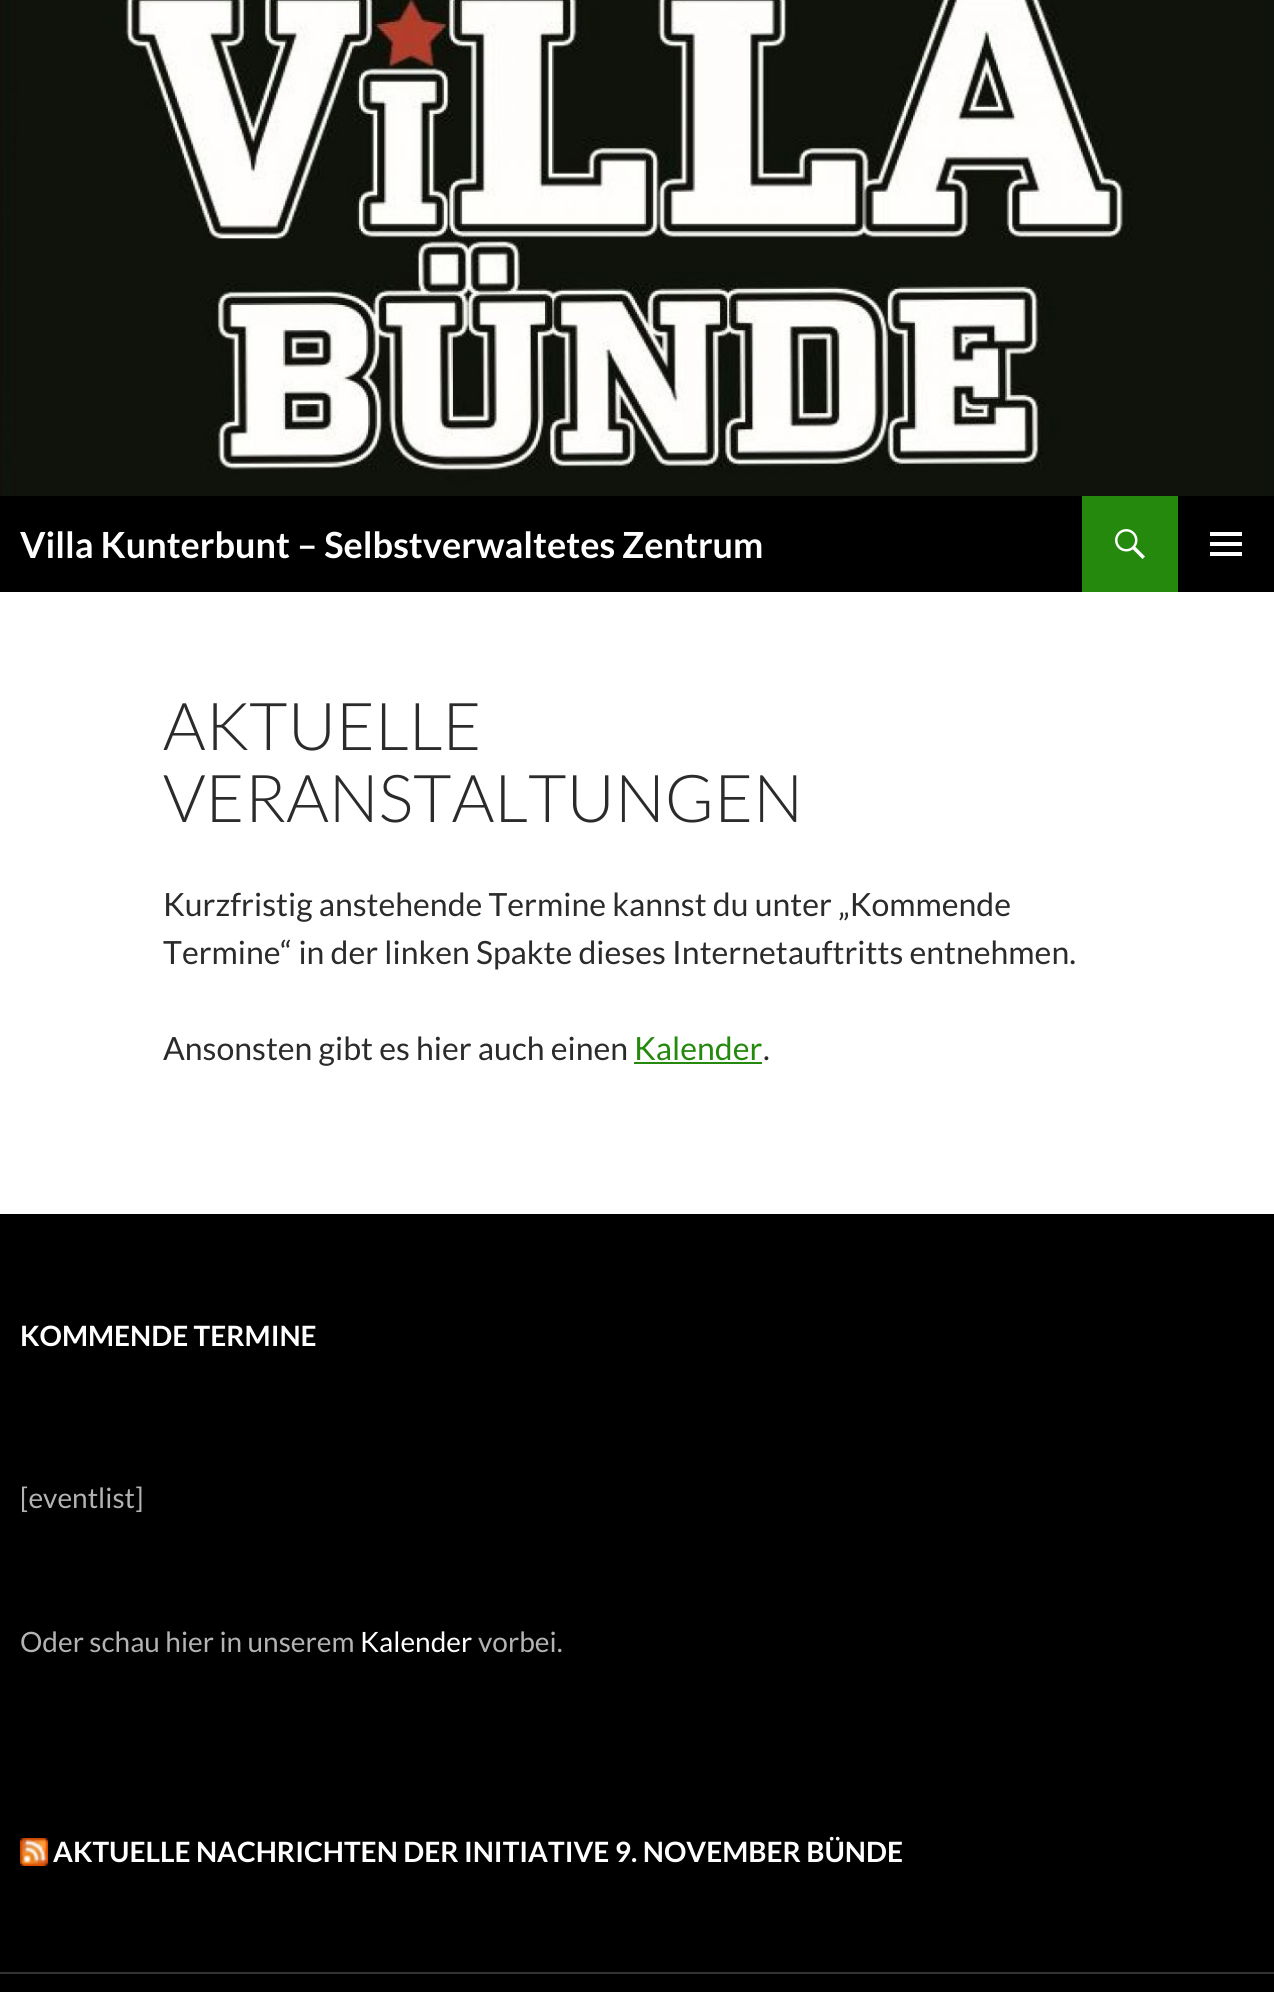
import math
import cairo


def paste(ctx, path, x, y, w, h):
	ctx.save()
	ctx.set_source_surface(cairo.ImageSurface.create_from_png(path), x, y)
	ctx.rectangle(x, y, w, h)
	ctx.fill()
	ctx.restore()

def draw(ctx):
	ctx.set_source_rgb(1, 1, 1)
	ctx.paint()
	paste(ctx, 'media/1.png', 0, 0, 1274, 496)
	ctx.set_source_rgb(0, 0, 0)
	ctx.rectangle(0, 496, 1274, 96)
	ctx.fill()
	ctx.select_font_face('Lato', cairo.FONT_SLANT_NORMAL, cairo.FONT_WEIGHT_BOLD)
	ctx.set_font_size(36)
	ctx.set_source_rgb(1, 1, 1)
	ctx.move_to(20, 558)
	ctx.show_text('Villa Kunterbunt – Selbstverwaltetes Zentrum')
	ctx.set_source_rgb(0.141, 0.537, 0.051)
	ctx.rectangle(1082, 496, 96, 96)
	ctx.fill()
	paste(ctx, 'media/2.png', 1115, 529, 30, 30)
	paste(ctx, 'media/3.png', 1210, 532, 32, 24)
	ctx.select_font_face('Lato Light')
	ctx.set_font_size(66)
	ctx.set_source_rgb(0.169, 0.169, 0.169)
	ctx.move_to(163, 750)
	ctx.show_text('AKTUELLE')
	ctx.move_to(163, 822)
	ctx.show_text('VERANSTALTUNGEN')
	ctx.select_font_face('Lato')
	ctx.set_font_size(32)
	for x, y, s in [
		(163, 916, 'Kurzfristig anstehende Termine kannst du unter „Kommende'),
		(163, 964, 'Termine“ in der linken Spakte dieses Internetauftritts entnehmen.'),
		(163, 1060, 'Ansonsten gibt es hier auch einen'),
	]:
		ctx.move_to(x, y)
		ctx.show_text(s)
	ctx.set_source_rgb(0.141, 0.537, 0.051)
	ctx.move_to(634, 1060)
	ctx.show_text('Kalender')
	ctx.rectangle(634, 1062, 128, 2)
	ctx.fill()
	ctx.set_source_rgb(0.169, 0.169, 0.169)
	ctx.move_to(763, 1060)
	ctx.show_text('.')
	ctx.set_source_rgb(0, 0, 0)
	ctx.rectangle(0, 1214, 1274, 758)
	ctx.fill()
	ctx.set_source_rgb(0.2, 0.2, 0.2)
	ctx.rectangle(0, 1972, 1274, 2)
	ctx.fill()
	ctx.select_font_face('Lato', cairo.FONT_SLANT_NORMAL, cairo.FONT_WEIGHT_BOLD)
	ctx.set_font_size(28)
	ctx.set_source_rgb(1, 1, 1)
	ctx.move_to(20, 1346)
	ctx.show_text('KOMMENDE TERMINE')
	ctx.select_font_face('Lato')
	ctx.set_source_rgb(0.702, 0.702, 0.702)
	ctx.move_to(20, 1508)
	ctx.show_text('[eventlist]')
	ctx.move_to(20, 1652)
	ctx.show_text('Oder schau hier in unserem')
	ctx.set_source_rgb(1, 1, 1)
	ctx.move_to(360, 1652)
	ctx.show_text('Kalender')
	ctx.set_source_rgb(0.702, 0.702, 0.702)
	ctx.move_to(478, 1652)
	ctx.show_text('vorbei.')
	paste(ctx, 'media/4.png', 20, 1838, 28, 28)
	ctx.select_font_face('Lato', cairo.FONT_SLANT_NORMAL, cairo.FONT_WEIGHT_BOLD)
	ctx.set_source_rgb(1, 1, 1)
	ctx.move_to(53, 1862)
	ctx.show_text('AKTUELLE NACHRICHTEN DER INITIATIVE 9. NOVEMBER BÜNDE')
	ctx.set_source_rgb(0, 0, 0)
	ctx.rectangle(0, 1974, 1274, 18)
	ctx.fill()


surface = cairo.ImageSurface(cairo.FORMAT_RGB24, 1274, 1992)
ctx = cairo.Context(surface)
options = cairo.FontOptions()
options.set_hint_metrics(cairo.HINT_METRICS_OFF)
options.set_hint_style(cairo.HINT_STYLE_NONE)
ctx.set_font_options(options)
ctx.set_miter_limit(4)
draw(ctx)
surface.write_to_png('image.png')
